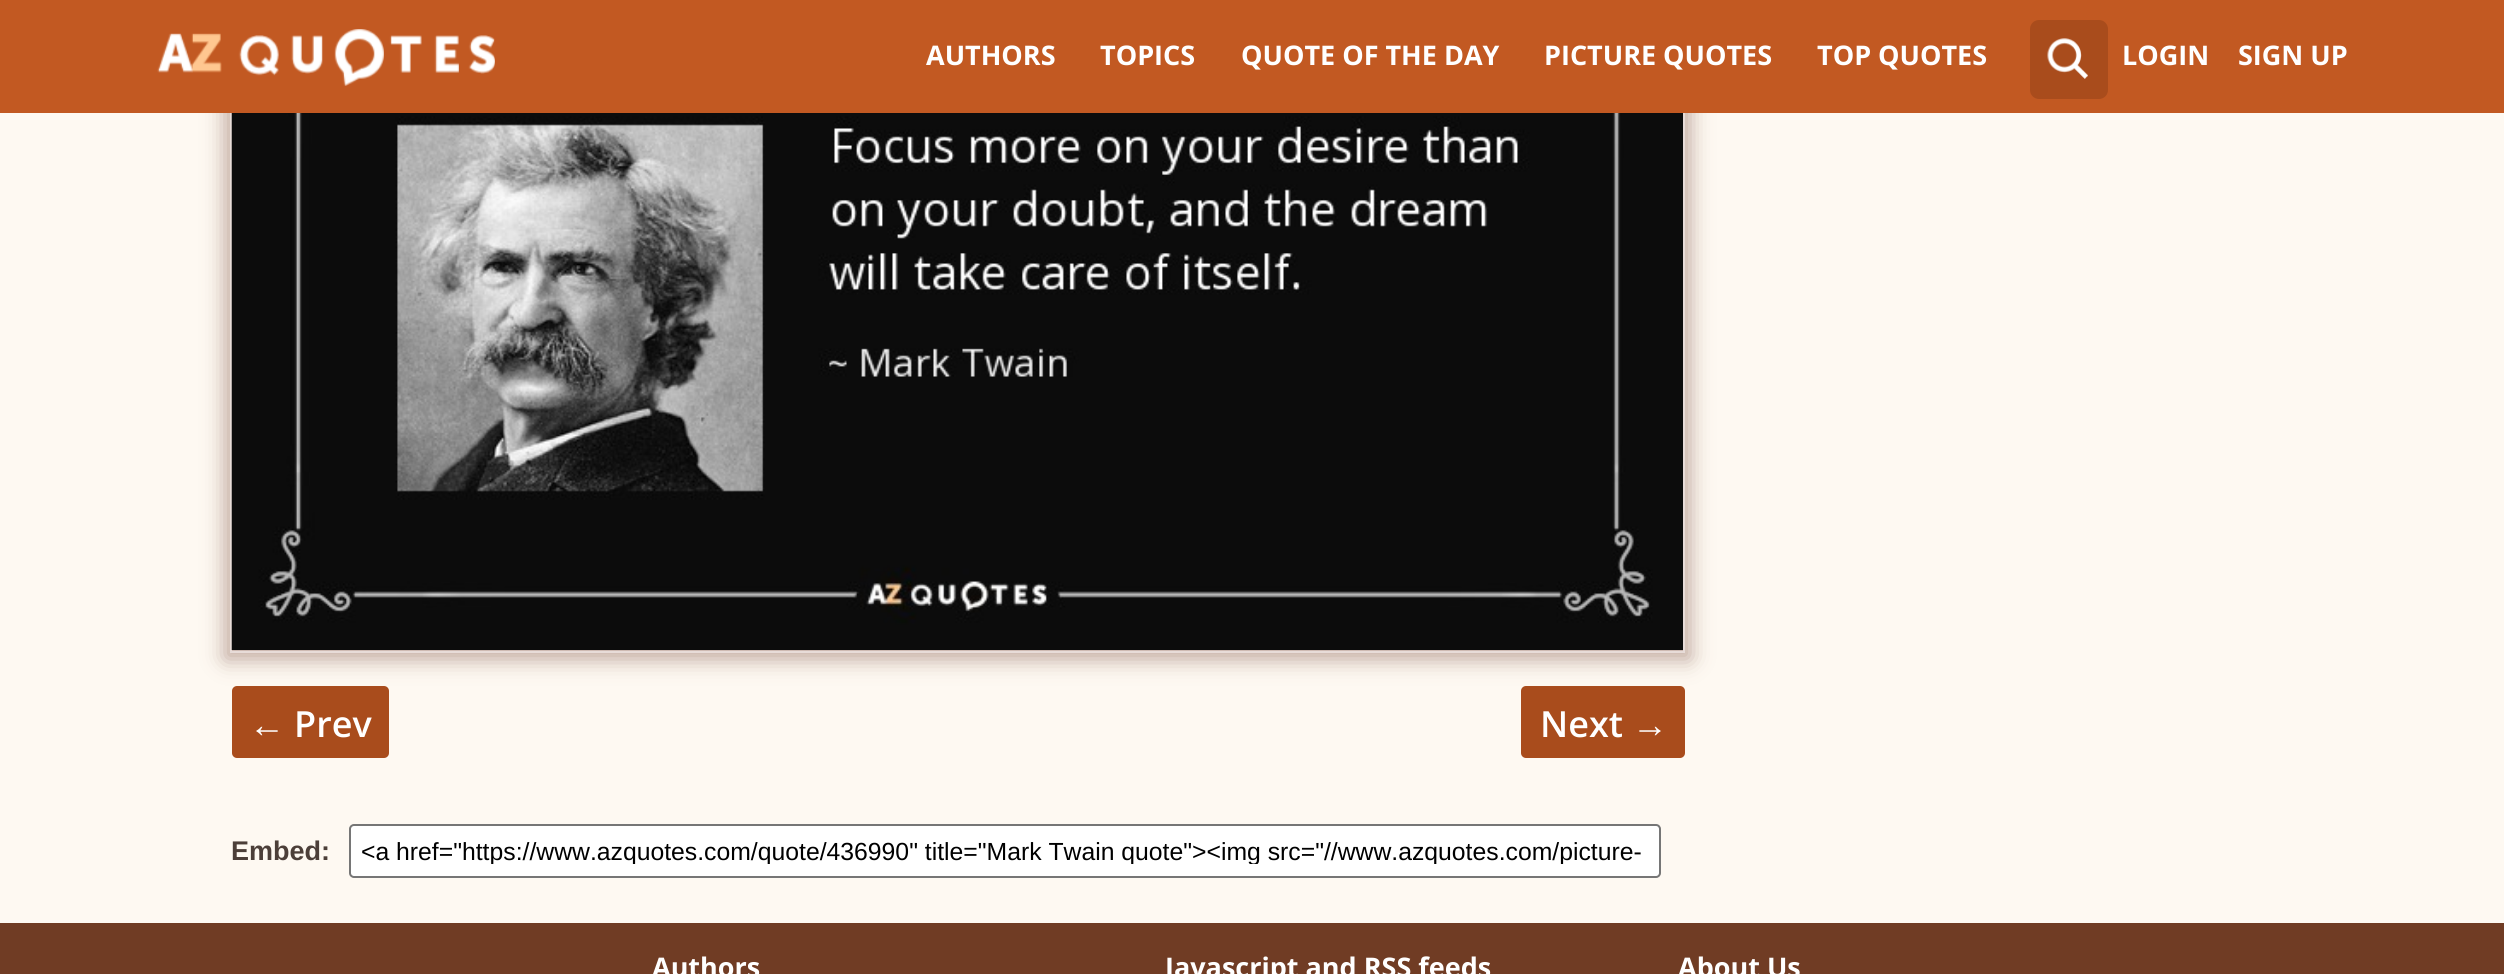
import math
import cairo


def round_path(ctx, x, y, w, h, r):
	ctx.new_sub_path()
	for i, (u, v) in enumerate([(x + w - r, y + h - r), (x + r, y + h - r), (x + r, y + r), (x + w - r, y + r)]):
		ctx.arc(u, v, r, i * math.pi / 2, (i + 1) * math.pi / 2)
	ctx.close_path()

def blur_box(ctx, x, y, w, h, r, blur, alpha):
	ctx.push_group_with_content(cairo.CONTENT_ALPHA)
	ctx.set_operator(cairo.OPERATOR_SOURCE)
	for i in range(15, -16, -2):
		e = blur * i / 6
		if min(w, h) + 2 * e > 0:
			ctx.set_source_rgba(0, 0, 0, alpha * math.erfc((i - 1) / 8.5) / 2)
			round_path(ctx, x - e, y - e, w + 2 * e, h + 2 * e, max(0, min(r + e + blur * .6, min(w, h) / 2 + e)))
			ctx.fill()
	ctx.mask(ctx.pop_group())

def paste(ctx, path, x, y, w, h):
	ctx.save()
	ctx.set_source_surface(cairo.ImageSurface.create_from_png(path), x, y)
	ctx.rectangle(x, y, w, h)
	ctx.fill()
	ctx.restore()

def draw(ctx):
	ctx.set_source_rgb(0.996, 0.973, 0.949)
	ctx.paint()
	ctx.set_source_rgb(0.663, 0.298, 0.11)
	round_path(ctx, 232, 686, 157, 72, 5)
	ctx.fill()
	round_path(ctx, 1521, 686, 164, 72, 5)
	ctx.fill()
	ctx.set_source_rgb(0.745, 0.651, 0.612)
	blur_box(ctx, 225, -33, 1465, 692, 0, 11, 1)
	ctx.rectangle(231, -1, 1453, 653)
	ctx.set_source_rgb(0.91, 0.863, 0.847)
	ctx.stroke()
	ctx.set_source_rgb(0.761, 0.349, 0.133)
	ctx.rectangle(0, 0, 2504, 113)
	ctx.fill()
	paste(ctx, 'media/1.png', 157, 29, 338, 57)
	ctx.select_font_face('Open Sans', cairo.FONT_SLANT_NORMAL, cairo.FONT_WEIGHT_BOLD)
	ctx.set_font_size(27)
	ctx.set_source_rgb(1, 1, 1)
	for x, y, s in [
		(926, 65, 'AUTHORS'),
		(1100, 65, 'TOPICS'),
		(1241, 65, 'QUOTE OF THE DAY'),
		(1544, 65, 'PICTURE QUOTES'),
		(1817, 65, 'TOP QUOTES'),
	]:
		ctx.move_to(x, y)
		ctx.show_text(s)
	ctx.set_source_rgb(0.663, 0.298, 0.11)
	round_path(ctx, 2030, 20, 78, 79, 9)
	ctx.fill()
	paste(ctx, 'media/2.png', 2047, 38, 41, 41)
	ctx.set_source_rgb(1, 1, 1)
	ctx.move_to(2122, 65)
	ctx.show_text('LOGIN')
	ctx.move_to(2238, 65)
	ctx.show_text('SIGN UP')
	paste(ctx, 'media/3.png', 231, 113, 1452, 537)
	ctx.select_font_face('Liberation Sans', cairo.FONT_SLANT_NORMAL, cairo.FONT_WEIGHT_BOLD)
	ctx.set_font_size(36)
	ctx.move_to(249, 737)
	ctx.show_text('←')
	ctx.select_font_face('Open Sans SemiBold')
	ctx.move_to(294, 737)
	ctx.show_text('Prev')
	ctx.move_to(1540, 737)
	ctx.show_text('Next')
	ctx.select_font_face('Liberation Sans', cairo.FONT_SLANT_NORMAL, cairo.FONT_WEIGHT_BOLD)
	ctx.move_to(1632, 737)
	ctx.show_text('→')
	ctx.set_font_size(27)
	ctx.set_source_rgb(0.298, 0.247, 0.224)
	ctx.move_to(231, 860)
	ctx.show_text('Embed:')
	ctx.set_source_rgb(1, 1, 1)
	round_path(ctx, 350, 825, 1310, 52, 4)
	ctx.fill_preserve()
	ctx.set_source_rgb(0.463, 0.463, 0.463)
	ctx.stroke()
	ctx.save()
	ctx.rectangle(362, 837, 1285, 27)
	ctx.clip()
	ctx.select_font_face('Liberation Sans')
	ctx.set_font_size(24.75)
	ctx.set_source_rgb(0, 0, 0)
	ctx.move_to(361, 860)
	ctx.show_text('<a href="https://www.azquotes.com/quote/436990" title="Mark Twain quote"><img src="//www.azquotes.com/picture-')
	ctx.restore()
	ctx.set_source_rgb(0.439, 0.235, 0.141)
	ctx.rectangle(0, 923, 2504, 51)
	ctx.fill()
	ctx.select_font_face('Open Sans', cairo.FONT_SLANT_NORMAL, cairo.FONT_WEIGHT_BOLD)
	ctx.set_source_rgb(1, 1, 1)
	for x, y, s in [
		(652, 977, 'Authors'),
		(1165, 977, 'Javascript and RSS feeds'),
		(1678, 977, 'About Us'),
	]:
		ctx.move_to(x, y)
		ctx.show_text(s)


surface = cairo.ImageSurface(cairo.FORMAT_RGB24, 2504, 974)
ctx = cairo.Context(surface)
options = cairo.FontOptions()
options.set_hint_metrics(cairo.HINT_METRICS_OFF)
options.set_hint_style(cairo.HINT_STYLE_NONE)
ctx.set_font_options(options)
ctx.set_miter_limit(4)
draw(ctx)
surface.write_to_png('image.png')
